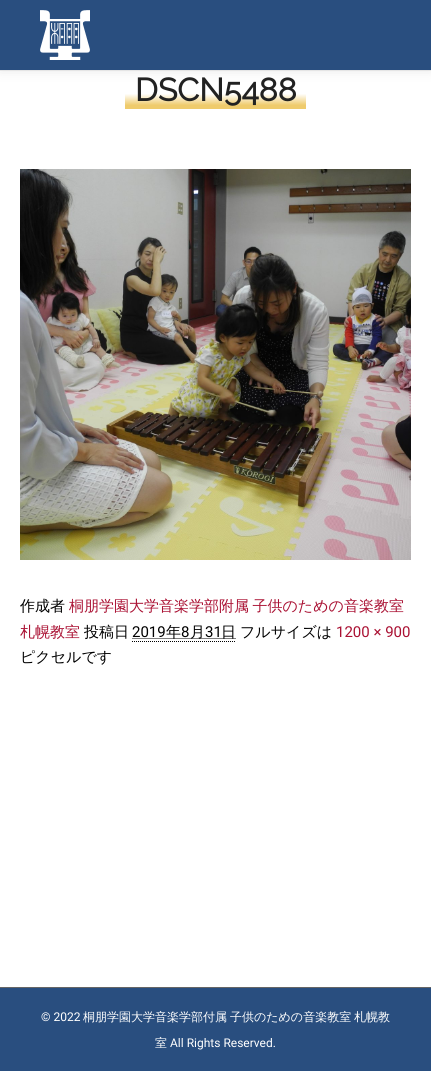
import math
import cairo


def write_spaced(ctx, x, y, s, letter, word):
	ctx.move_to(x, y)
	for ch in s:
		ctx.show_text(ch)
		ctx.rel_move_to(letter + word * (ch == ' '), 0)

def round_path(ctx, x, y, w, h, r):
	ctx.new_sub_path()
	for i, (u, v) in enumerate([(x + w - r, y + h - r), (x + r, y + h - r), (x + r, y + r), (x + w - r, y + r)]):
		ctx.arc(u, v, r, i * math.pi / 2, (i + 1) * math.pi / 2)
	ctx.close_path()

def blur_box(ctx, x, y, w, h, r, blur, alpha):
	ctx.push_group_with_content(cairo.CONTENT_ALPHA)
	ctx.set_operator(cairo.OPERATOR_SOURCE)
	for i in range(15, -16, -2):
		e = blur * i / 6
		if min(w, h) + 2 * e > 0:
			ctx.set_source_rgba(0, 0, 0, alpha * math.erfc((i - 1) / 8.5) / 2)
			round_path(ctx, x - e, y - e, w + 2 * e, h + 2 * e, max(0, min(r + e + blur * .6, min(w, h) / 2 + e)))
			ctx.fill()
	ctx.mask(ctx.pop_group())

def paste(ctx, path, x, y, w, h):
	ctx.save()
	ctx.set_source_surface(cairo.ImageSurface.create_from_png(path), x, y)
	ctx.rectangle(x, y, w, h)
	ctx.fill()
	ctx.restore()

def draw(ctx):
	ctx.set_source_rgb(1, 1, 1)
	ctx.paint()
	ctx.set_source_rgb(0, 0, 0)
	blur_box(ctx, 0, 0, 431, 71, 0, 6, 0.09)
	ctx.set_source_rgb(0.161, 0.306, 0.498)
	ctx.rectangle(0, 0, 431, 70)
	ctx.fill()
	ctx.set_source_rgb(0.898, 0.898, 0.898)
	ctx.rectangle(0, 70, 431, 1)
	ctx.fill()
	paste(ctx, 'media/1.png', 40, 10, 50, 50)
	gradient = cairo.LinearGradient(216, 71, 216, 109)
	gradient.add_color_stop_rgba(0.6, 1, 1, 1, 1)
	gradient.add_color_stop_rgba(0.9, 0.937, 0.796, 0.424, 1)
	ctx.set_source(gradient)
	ctx.rectangle(125, 94, 181, 15)
	ctx.fill()
	ctx.select_font_face('Raleway', cairo.FONT_SLANT_NORMAL, cairo.FONT_WEIGHT_BOLD)
	ctx.set_font_size(32)
	ctx.set_source_rgb(0.133, 0.133, 0.133)
	ctx.move_to(135, 101)
	ctx.show_text('DSCN5488')
	paste(ctx, 'media/2.png', 20, 169, 391, 391)
	ctx.select_font_face('WenQuanYi Zen Hei Medium')
	ctx.set_font_size(15)
	ctx.set_source_rgb(0, 0, 0)
	ctx.move_to(20, 611)
	ctx.show_text('作成者')
	ctx.set_source_rgb(0.667, 0.067, 0.2)
	write_spaced(ctx, 69, 611, '桐朋学園大学音楽学部附属 子供のための音楽教室', 0, -1)
	ctx.move_to(20, 637)
	ctx.show_text('札幌教室')
	ctx.set_source_rgb(0, 0, 0)
	ctx.move_to(84, 637)
	ctx.show_text('投稿日')
	ctx.select_font_face('Roboto')
	ctx.move_to(132, 637)
	ctx.show_text('2019')
	ctx.new_path()
	ctx.move_to(132, 641.5)
	ctx.line_to(236, 641.5)
	ctx.set_line_width(1)
	ctx.set_dash([1, 1])
	ctx.stroke()
	ctx.new_path()
	ctx.move_to(132.5, 638.5)
	ctx.line_to(236.5, 638.5)
	ctx.stroke()
	ctx.select_font_face('WenQuanYi Zen Hei Medium')
	ctx.move_to(166, 637)
	ctx.show_text('年')
	ctx.select_font_face('Roboto')
	ctx.move_to(181, 637)
	ctx.show_text('8')
	ctx.select_font_face('WenQuanYi Zen Hei Medium')
	ctx.move_to(190, 637)
	ctx.show_text('月')
	ctx.select_font_face('Roboto')
	ctx.move_to(205, 637)
	ctx.show_text('31')
	ctx.select_font_face('WenQuanYi Zen Hei Medium')
	ctx.move_to(221, 637)
	ctx.show_text('日')
	ctx.move_to(240, 637)
	ctx.show_text('フルサイズは')
	ctx.select_font_face('Roboto')
	ctx.set_source_rgb(0.667, 0.067, 0.2)
	ctx.move_to(336, 637)
	ctx.show_text('1200 × 900')
	ctx.select_font_face('WenQuanYi Zen Hei Medium')
	ctx.set_source_rgb(0, 0, 0)
	ctx.move_to(20, 662)
	ctx.show_text('ピクセルです')
	ctx.set_source_rgb(0.161, 0.306, 0.498)
	ctx.rectangle(0, 988, 431, 83)
	ctx.fill()
	ctx.set_source_rgb(0.4, 0.4, 0.4)
	ctx.rectangle(0, 987, 431, 1)
	ctx.fill()
	ctx.select_font_face('Roboto')
	ctx.set_font_size(12)
	ctx.set_source_rgb(1, 1, 1)
	ctx.move_to(41, 1021)
	ctx.show_text('© 2022')
	ctx.select_font_face('WenQuanYi Zen Hei Medium')
	for x, y, s in [
		(83, 1021, '桐朋学園大学音楽学部付属'),
		(230, 1021, '子供のための音楽教室'),
		(354, 1021, '札幌教'),
		(155, 1047, '室'),
	]:
		ctx.move_to(x, y)
		ctx.show_text(s)
	ctx.select_font_face('Roboto')
	ctx.move_to(170, 1047)
	ctx.show_text('All Rights Reserved.')


surface = cairo.ImageSurface(cairo.FORMAT_RGB24, 431, 1071)
ctx = cairo.Context(surface)
options = cairo.FontOptions()
options.set_hint_metrics(cairo.HINT_METRICS_OFF)
options.set_hint_style(cairo.HINT_STYLE_NONE)
ctx.set_font_options(options)
ctx.set_miter_limit(4)
draw(ctx)
surface.write_to_png('image.png')
